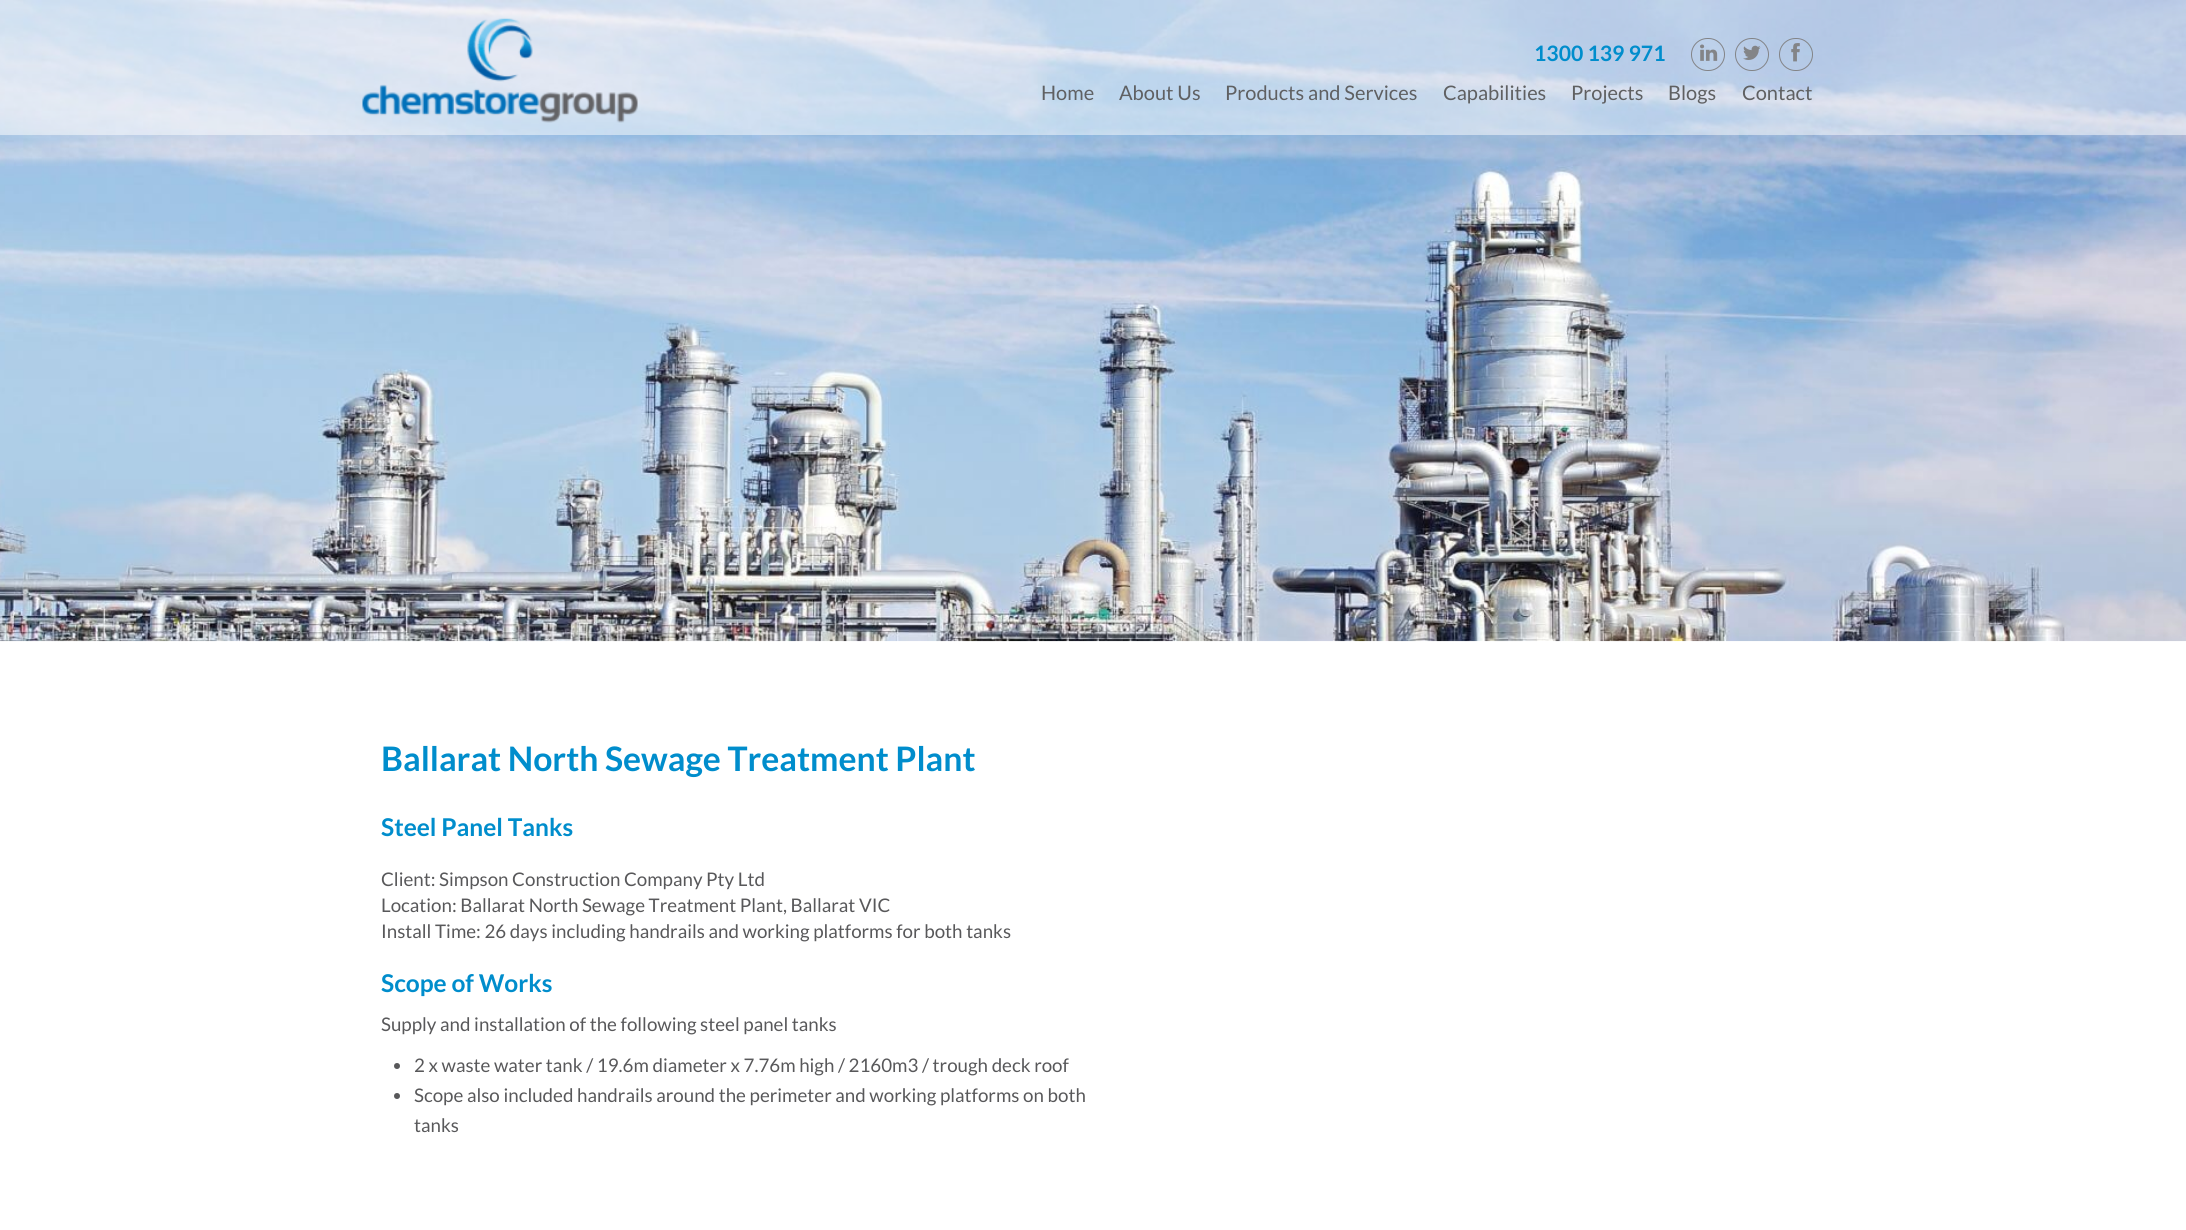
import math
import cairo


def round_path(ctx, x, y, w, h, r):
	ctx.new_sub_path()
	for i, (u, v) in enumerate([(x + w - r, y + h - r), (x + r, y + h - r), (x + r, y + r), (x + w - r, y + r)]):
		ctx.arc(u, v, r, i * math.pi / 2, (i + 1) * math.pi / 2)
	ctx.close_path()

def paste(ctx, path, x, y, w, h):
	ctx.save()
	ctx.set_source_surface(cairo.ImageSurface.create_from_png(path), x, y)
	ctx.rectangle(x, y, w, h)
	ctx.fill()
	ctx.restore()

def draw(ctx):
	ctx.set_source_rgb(1, 1, 1)
	ctx.paint()
	paste(ctx, 'media/1.png', 0, 0, 2186, 642)
	ctx.set_source_rgba(1, 1, 1, 0.5)
	ctx.rectangle(0, 0, 2186, 135)
	ctx.fill()
	paste(ctx, 'media/2.png', 362, 18, 276, 105)
	ctx.select_font_face('Lato', cairo.FONT_SLANT_NORMAL, cairo.FONT_WEIGHT_BOLD)
	ctx.set_font_size(21.25)
	ctx.set_source_rgb(0, 0.553, 0.8)
	ctx.move_to(1534, 61)
	ctx.show_text('1300 139 971')
	round_path(ctx, 1691.5, 38.5, 33, 32, 16)
	ctx.set_source_rgb(0.514, 0.518, 0.529)
	ctx.set_line_width(1)
	ctx.stroke()
	paste(ctx, 'media/3.png', 1700, 44, 18, 17)
	round_path(ctx, 1735.5, 38.5, 33, 32, 16)
	ctx.stroke()
	paste(ctx, 'media/4.png', 1743, 45, 18, 15)
	round_path(ctx, 1779.5, 38.5, 33, 32, 16)
	ctx.stroke()
	paste(ctx, 'media/5.png', 1791, 43, 9, 19)
	ctx.select_font_face('Lato')
	ctx.set_font_size(20)
	ctx.set_source_rgb(0.373, 0.376, 0.384)
	for x, y, s in [
		(1041, 100, 'Home'),
		(1119, 100, 'About Us'),
		(1225, 100, 'Products and Services'),
		(1443, 100, 'Capabilities'),
		(1571, 100, 'Projects'),
		(1668, 100, 'Blogs'),
		(1742, 100, 'Contact'),
	]:
		ctx.move_to(x, y)
		ctx.show_text(s)
	ctx.select_font_face('Lato', cairo.FONT_SLANT_NORMAL, cairo.FONT_WEIGHT_BOLD)
	ctx.set_font_size(33.75)
	ctx.set_source_rgb(0, 0.553, 0.8)
	ctx.move_to(381, 771)
	ctx.show_text('Ballarat North Sewage Treatment Plant')
	ctx.set_font_size(24.5)
	ctx.move_to(381, 836)
	ctx.show_text('Steel Panel Tanks')
	ctx.select_font_face('Lato')
	ctx.set_font_size(18.75)
	ctx.set_source_rgb(0.345, 0.345, 0.353)
	for x, y, s in [
		(381, 886, 'Client: Simpson Construction Company Pty Ltd'),
		(381, 912, 'Location: Ballarat North Sewage Treatment Plant, Ballarat VIC'),
		(381, 938, 'Install Time: 26 days including handrails and working platforms for both tanks'),
	]:
		ctx.move_to(x, y)
		ctx.show_text(s)
	ctx.select_font_face('Lato', cairo.FONT_SLANT_NORMAL, cairo.FONT_WEIGHT_BOLD)
	ctx.set_font_size(24.5)
	ctx.set_source_rgb(0, 0.553, 0.8)
	ctx.move_to(381, 992)
	ctx.show_text('Scope of Works')
	ctx.select_font_face('Lato')
	ctx.set_font_size(18.75)
	ctx.set_source_rgb(0.345, 0.345, 0.353)
	ctx.move_to(381, 1031)
	ctx.show_text('Supply and installation of the following steel panel tanks')
	ctx.new_path()
	ctx.arc(397, 1066, 3, 0, 2 * math.pi)
	ctx.fill()
	ctx.move_to(414, 1072)
	ctx.show_text('2 x waste water tank / 19.6m diameter x 7.76m high / 2160m3 / trough deck roof')
	ctx.new_path()
	ctx.arc(397, 1096, 3, 0, 2 * math.pi)
	ctx.fill()
	ctx.move_to(414, 1102)
	ctx.show_text('Scope also included handrails around the perimeter and working platforms on both')
	ctx.move_to(414, 1132)
	ctx.show_text('tanks')


surface = cairo.ImageSurface(cairo.FORMAT_RGB24, 2186, 1230)
ctx = cairo.Context(surface)
options = cairo.FontOptions()
options.set_hint_metrics(cairo.HINT_METRICS_OFF)
options.set_hint_style(cairo.HINT_STYLE_NONE)
ctx.set_font_options(options)
ctx.set_miter_limit(4)
draw(ctx)
surface.write_to_png('image.png')
